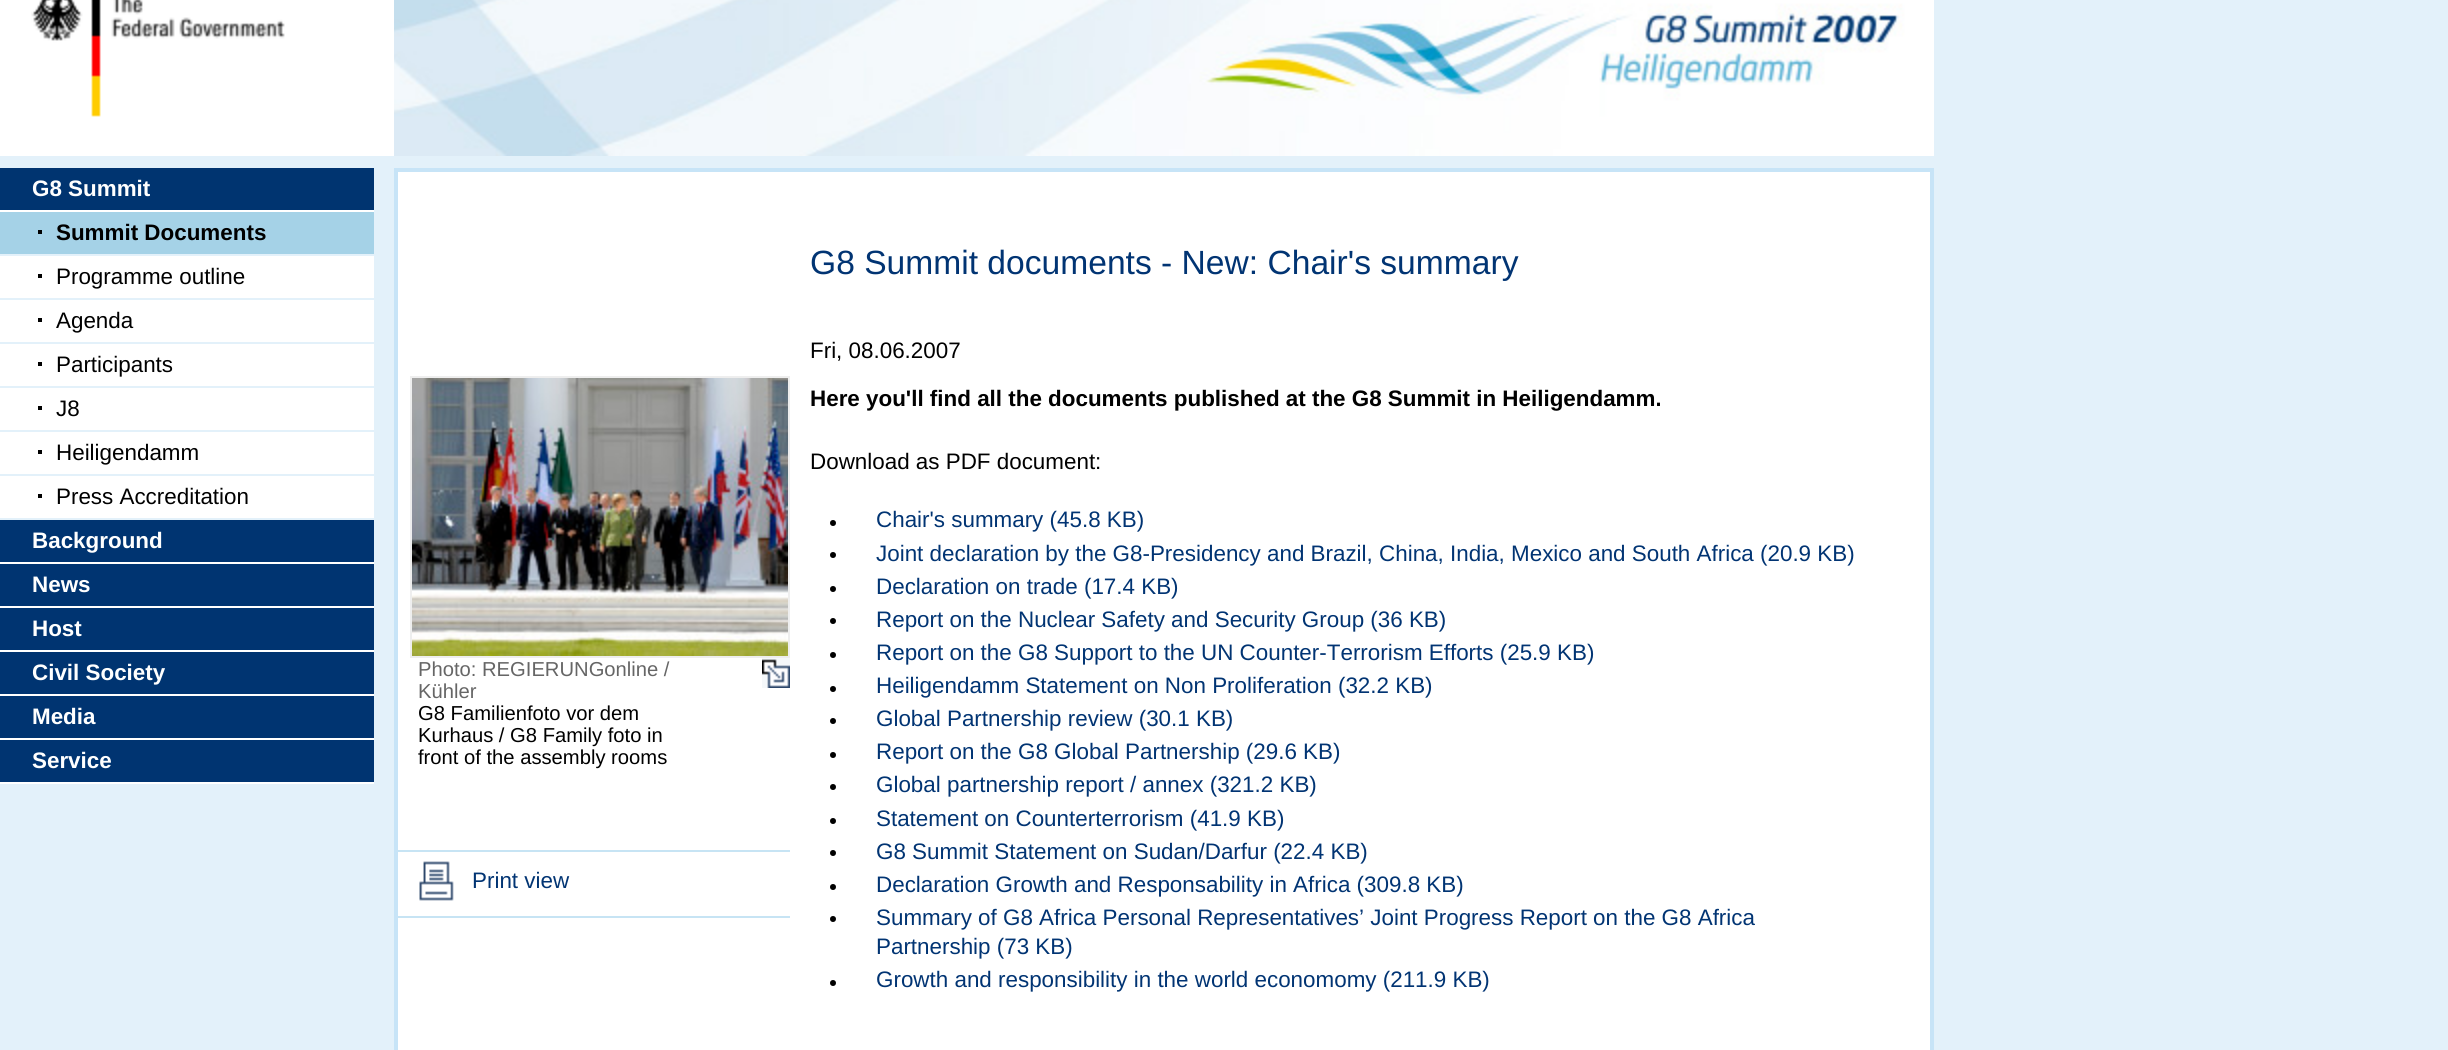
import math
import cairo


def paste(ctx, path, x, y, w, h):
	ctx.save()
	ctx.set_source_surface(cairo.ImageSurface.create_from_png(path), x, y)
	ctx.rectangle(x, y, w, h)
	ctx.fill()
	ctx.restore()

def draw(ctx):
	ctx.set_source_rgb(0.89, 0.945, 0.98)
	ctx.paint()
	paste(ctx, 'media/1.png', 394, 0, 1540, 156)
	ctx.set_source_rgb(1, 1, 1)
	ctx.rectangle(0, 0, 394, 156)
	ctx.fill()
	paste(ctx, 'media/2.png', 31, 0, 254, 117)
	ctx.set_source_rgb(0, 0.204, 0.439)
	ctx.rectangle(0, 168, 374, 42)
	ctx.fill()
	ctx.set_source_rgb(1, 1, 1)
	ctx.rectangle(0, 210, 374, 2)
	ctx.fill()
	ctx.select_font_face('Liberation Sans', cairo.FONT_SLANT_NORMAL, cairo.FONT_WEIGHT_BOLD)
	ctx.set_font_size(22.4)
	ctx.move_to(32, 196)
	ctx.show_text('G8 Summit')
	ctx.set_source_rgb(0.647, 0.824, 0.906)
	ctx.rectangle(0, 212, 374, 42)
	ctx.fill()
	ctx.set_source_rgb(0.004, 0.004, 0.004)
	ctx.rectangle(38, 230, 4, 4)
	ctx.fill()
	ctx.set_source_rgb(0, 0, 0)
	ctx.move_to(56, 240)
	ctx.show_text('Summit Documents')
	ctx.set_source_rgb(1, 1, 1)
	ctx.rectangle(0, 256, 374, 42)
	ctx.fill()
	ctx.set_source_rgb(0.004, 0.004, 0.004)
	ctx.rectangle(38, 274, 4, 4)
	ctx.fill()
	ctx.select_font_face('Liberation Sans')
	ctx.set_source_rgb(0, 0, 0)
	ctx.move_to(56, 284)
	ctx.show_text('Programme outline')
	ctx.set_source_rgb(1, 1, 1)
	ctx.rectangle(0, 300, 374, 42)
	ctx.fill()
	ctx.set_source_rgb(0.004, 0.004, 0.004)
	ctx.rectangle(38, 318, 4, 4)
	ctx.fill()
	ctx.set_source_rgb(0, 0, 0)
	ctx.move_to(56, 328)
	ctx.show_text('Agenda')
	ctx.set_source_rgb(1, 1, 1)
	ctx.rectangle(0, 344, 374, 42)
	ctx.fill()
	ctx.set_source_rgb(0.004, 0.004, 0.004)
	ctx.rectangle(38, 362, 4, 4)
	ctx.fill()
	ctx.set_source_rgb(0, 0, 0)
	ctx.move_to(56, 372)
	ctx.show_text('Participants')
	ctx.set_source_rgb(1, 1, 1)
	ctx.rectangle(0, 388, 374, 42)
	ctx.fill()
	ctx.set_source_rgb(0.004, 0.004, 0.004)
	ctx.rectangle(38, 406, 4, 4)
	ctx.fill()
	ctx.set_source_rgb(0, 0, 0)
	ctx.move_to(56, 416)
	ctx.show_text('J8')
	ctx.set_source_rgb(1, 1, 1)
	ctx.rectangle(0, 432, 374, 42)
	ctx.fill()
	ctx.set_source_rgb(0.004, 0.004, 0.004)
	ctx.rectangle(38, 450, 4, 4)
	ctx.fill()
	ctx.set_source_rgb(0, 0, 0)
	ctx.move_to(56, 460)
	ctx.show_text('Heiligendamm')
	ctx.set_source_rgb(1, 1, 1)
	ctx.rectangle(0, 476, 374, 42)
	ctx.fill()
	ctx.set_source_rgb(0.004, 0.004, 0.004)
	ctx.rectangle(38, 494, 4, 4)
	ctx.fill()
	ctx.set_source_rgb(0, 0, 0)
	ctx.move_to(56, 504)
	ctx.show_text('Press Accreditation')
	ctx.set_source_rgb(0, 0.204, 0.443)
	ctx.rectangle(0, 520, 374, 42)
	ctx.fill()
	ctx.set_source_rgb(1, 1, 1)
	ctx.rectangle(0, 562, 374, 2)
	ctx.fill()
	ctx.select_font_face('Liberation Sans', cairo.FONT_SLANT_NORMAL, cairo.FONT_WEIGHT_BOLD)
	ctx.move_to(32, 548)
	ctx.show_text('Background')
	ctx.set_source_rgb(0, 0.204, 0.443)
	ctx.rectangle(0, 564, 374, 42)
	ctx.fill()
	ctx.set_source_rgb(1, 1, 1)
	ctx.rectangle(0, 606, 374, 2)
	ctx.fill()
	ctx.move_to(32, 592)
	ctx.show_text('News')
	ctx.set_source_rgb(0, 0.204, 0.443)
	ctx.rectangle(0, 608, 374, 42)
	ctx.fill()
	ctx.set_source_rgb(1, 1, 1)
	ctx.rectangle(0, 650, 374, 2)
	ctx.fill()
	ctx.move_to(32, 636)
	ctx.show_text('Host')
	ctx.set_source_rgb(0, 0.204, 0.443)
	ctx.rectangle(0, 652, 374, 42)
	ctx.fill()
	ctx.set_source_rgb(1, 1, 1)
	ctx.rectangle(0, 694, 374, 2)
	ctx.fill()
	ctx.move_to(32, 680)
	ctx.show_text('Civil Society')
	ctx.set_source_rgb(0, 0.204, 0.443)
	ctx.rectangle(0, 696, 374, 42)
	ctx.fill()
	ctx.set_source_rgb(1, 1, 1)
	ctx.rectangle(0, 738, 374, 2)
	ctx.fill()
	ctx.move_to(32, 724)
	ctx.show_text('Media')
	ctx.set_source_rgb(0, 0.204, 0.443)
	ctx.rectangle(0, 740, 374, 42)
	ctx.fill()
	ctx.set_source_rgb(1, 1, 1)
	ctx.rectangle(0, 782, 374, 2)
	ctx.fill()
	ctx.move_to(32, 768)
	ctx.show_text('Service')
	ctx.rectangle(396, 170, 1536, 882)
	ctx.fill_preserve()
	ctx.set_source_rgb(0.78, 0.894, 0.965)
	ctx.set_line_width(4)
	ctx.stroke()
	ctx.select_font_face('Liberation Sans')
	ctx.set_font_size(33.6)
	ctx.set_source_rgb(0.004, 0.204, 0.451)
	ctx.move_to(810, 274)
	ctx.show_text('G8 Summit documents - New: Chair\'s summary')
	ctx.set_font_size(22.4)
	ctx.set_source_rgb(0, 0, 0)
	ctx.move_to(810, 358)
	ctx.show_text('Fri, 08.06.2007')
	ctx.rectangle(411, 377, 378, 280)
	ctx.set_source_rgb(0.933, 0.933, 0.933)
	ctx.set_line_width(2)
	ctx.stroke()
	paste(ctx, 'media/3.png', 412, 378, 376, 278)
	ctx.set_font_size(20.2)
	ctx.set_source_rgb(0.4, 0.4, 0.4)
	ctx.move_to(418, 676)
	ctx.show_text('Photo: REGIERUNGonline /')
	ctx.move_to(418, 698)
	ctx.show_text('Kühler')
	paste(ctx, 'media/4.png', 762, 658, 28, 30)
	ctx.set_source_rgb(0, 0, 0)
	for x, y, s in [
		(418, 720, 'G8 Familienfoto vor dem'),
		(418, 742, 'Kurhaus / G8 Family foto in'),
		(418, 764, 'front of the assembly rooms'),
	]:
		ctx.move_to(x, y)
		ctx.show_text(s)
	ctx.set_source_rgb(0.78, 0.894, 0.957)
	ctx.rectangle(398, 850, 392, 2)
	ctx.fill()
	ctx.rectangle(398, 916, 392, 2)
	ctx.fill()
	paste(ctx, 'media/5.png', 419, 861, 35, 40)
	ctx.set_font_size(22.4)
	ctx.set_source_rgb(0.004, 0.204, 0.451)
	ctx.move_to(472, 888)
	ctx.show_text('Print view')
	ctx.select_font_face('Liberation Sans', cairo.FONT_SLANT_NORMAL, cairo.FONT_WEIGHT_BOLD)
	ctx.set_source_rgb(0, 0, 0)
	ctx.move_to(810, 406)
	ctx.show_text('Here you\'ll find all the documents published at the G8 Summit in Heiligendamm.')
	ctx.select_font_face('Liberation Sans')
	ctx.move_to(810, 469)
	ctx.show_text('Download as PDF document:')
	ctx.new_path()
	ctx.arc(833, 523, 3, 0, 2 * math.pi)
	ctx.fill()
	ctx.set_source_rgb(0.004, 0.204, 0.451)
	ctx.move_to(876, 527)
	ctx.show_text('Chair\'s summary (45.8 KB)')
	ctx.set_source_rgb(0, 0, 0)
	ctx.new_path()
	ctx.arc(833, 555, 3, 0, 2 * math.pi)
	ctx.fill()
	ctx.set_source_rgb(0.004, 0.204, 0.451)
	ctx.move_to(876, 561)
	ctx.show_text('Joint declaration by the G8-Presidency and Brazil, China, India, Mexico and South Africa (20.9 KB)')
	ctx.set_source_rgb(0, 0, 0)
	ctx.new_path()
	ctx.arc(833, 589, 3, 0, 2 * math.pi)
	ctx.fill()
	ctx.set_source_rgb(0.004, 0.204, 0.451)
	ctx.move_to(876, 594)
	ctx.show_text('Declaration on trade (17.4 KB)')
	ctx.set_source_rgb(0, 0, 0)
	ctx.new_path()
	ctx.arc(833, 621, 3, 0, 2 * math.pi)
	ctx.fill()
	ctx.set_source_rgb(0.004, 0.204, 0.451)
	ctx.move_to(876, 627)
	ctx.show_text('Report on the Nuclear Safety and Security Group (36 KB)')
	ctx.set_source_rgb(0, 0, 0)
	ctx.new_path()
	ctx.arc(833, 655, 3, 0, 2 * math.pi)
	ctx.fill()
	ctx.set_source_rgb(0.004, 0.204, 0.451)
	ctx.move_to(876, 660)
	ctx.show_text('Report on the G8 Support to the UN Counter-Terrorism Efforts (25.9 KB)')
	ctx.set_source_rgb(0, 0, 0)
	ctx.new_path()
	ctx.arc(833, 689, 3, 0, 2 * math.pi)
	ctx.fill()
	ctx.set_source_rgb(0.004, 0.204, 0.451)
	ctx.move_to(876, 693)
	ctx.show_text('Heiligendamm Statement on Non Proliferation (32.2 KB)')
	ctx.set_source_rgb(0, 0, 0)
	ctx.new_path()
	ctx.arc(833, 721, 3, 0, 2 * math.pi)
	ctx.fill()
	ctx.set_source_rgb(0.004, 0.204, 0.451)
	ctx.move_to(876, 726)
	ctx.show_text('Global Partnership review (30.1 KB)')
	ctx.set_source_rgb(0, 0, 0)
	ctx.new_path()
	ctx.arc(833, 755, 3, 0, 2 * math.pi)
	ctx.fill()
	ctx.set_source_rgb(0.004, 0.204, 0.451)
	ctx.move_to(876, 759)
	ctx.show_text('Report on the G8 Global Partnership (29.6 KB)')
	ctx.set_source_rgb(0, 0, 0)
	ctx.new_path()
	ctx.arc(833, 787, 3, 0, 2 * math.pi)
	ctx.fill()
	ctx.set_source_rgb(0.004, 0.204, 0.451)
	ctx.move_to(876, 792)
	ctx.show_text('Global partnership report / annex (321.2 KB)')
	ctx.set_source_rgb(0, 0, 0)
	ctx.new_path()
	ctx.arc(833, 821, 3, 0, 2 * math.pi)
	ctx.fill()
	ctx.set_source_rgb(0.004, 0.204, 0.451)
	ctx.move_to(876, 826)
	ctx.show_text('Statement on Counterterrorism (41.9 KB)')
	ctx.set_source_rgb(0, 0, 0)
	ctx.new_path()
	ctx.arc(833, 853, 3, 0, 2 * math.pi)
	ctx.fill()
	ctx.set_source_rgb(0.004, 0.204, 0.451)
	ctx.move_to(876, 859)
	ctx.show_text('G8 Summit Statement on Sudan/Darfur (22.4 KB)')
	ctx.set_source_rgb(0, 0, 0)
	ctx.new_path()
	ctx.arc(833, 887, 3, 0, 2 * math.pi)
	ctx.fill()
	ctx.set_source_rgb(0.004, 0.204, 0.451)
	ctx.move_to(876, 892)
	ctx.show_text('Declaration Growth and Responsability in Africa (309.8 KB)')
	ctx.set_source_rgb(0, 0, 0)
	ctx.new_path()
	ctx.arc(833, 919, 3, 0, 2 * math.pi)
	ctx.fill()
	ctx.set_source_rgb(0.004, 0.204, 0.451)
	ctx.move_to(876, 925)
	ctx.show_text('Summary of G8 Africa Personal Representatives’ Joint Progress Report on the G8 Africa')
	ctx.move_to(876, 954)
	ctx.show_text('Partnership (73 KB)')
	ctx.set_source_rgb(0, 0, 0)
	ctx.new_path()
	ctx.arc(833, 983, 3, 0, 2 * math.pi)
	ctx.fill()
	ctx.set_source_rgb(0.004, 0.204, 0.451)
	ctx.move_to(876, 987)
	ctx.show_text('Growth and responsibility in the world economomy (211.9 KB)')


surface = cairo.ImageSurface(cairo.FORMAT_RGB24, 2448, 1050)
ctx = cairo.Context(surface)
options = cairo.FontOptions()
options.set_hint_metrics(cairo.HINT_METRICS_OFF)
options.set_hint_style(cairo.HINT_STYLE_NONE)
ctx.set_font_options(options)
ctx.set_miter_limit(4)
draw(ctx)
surface.write_to_png('image.png')
